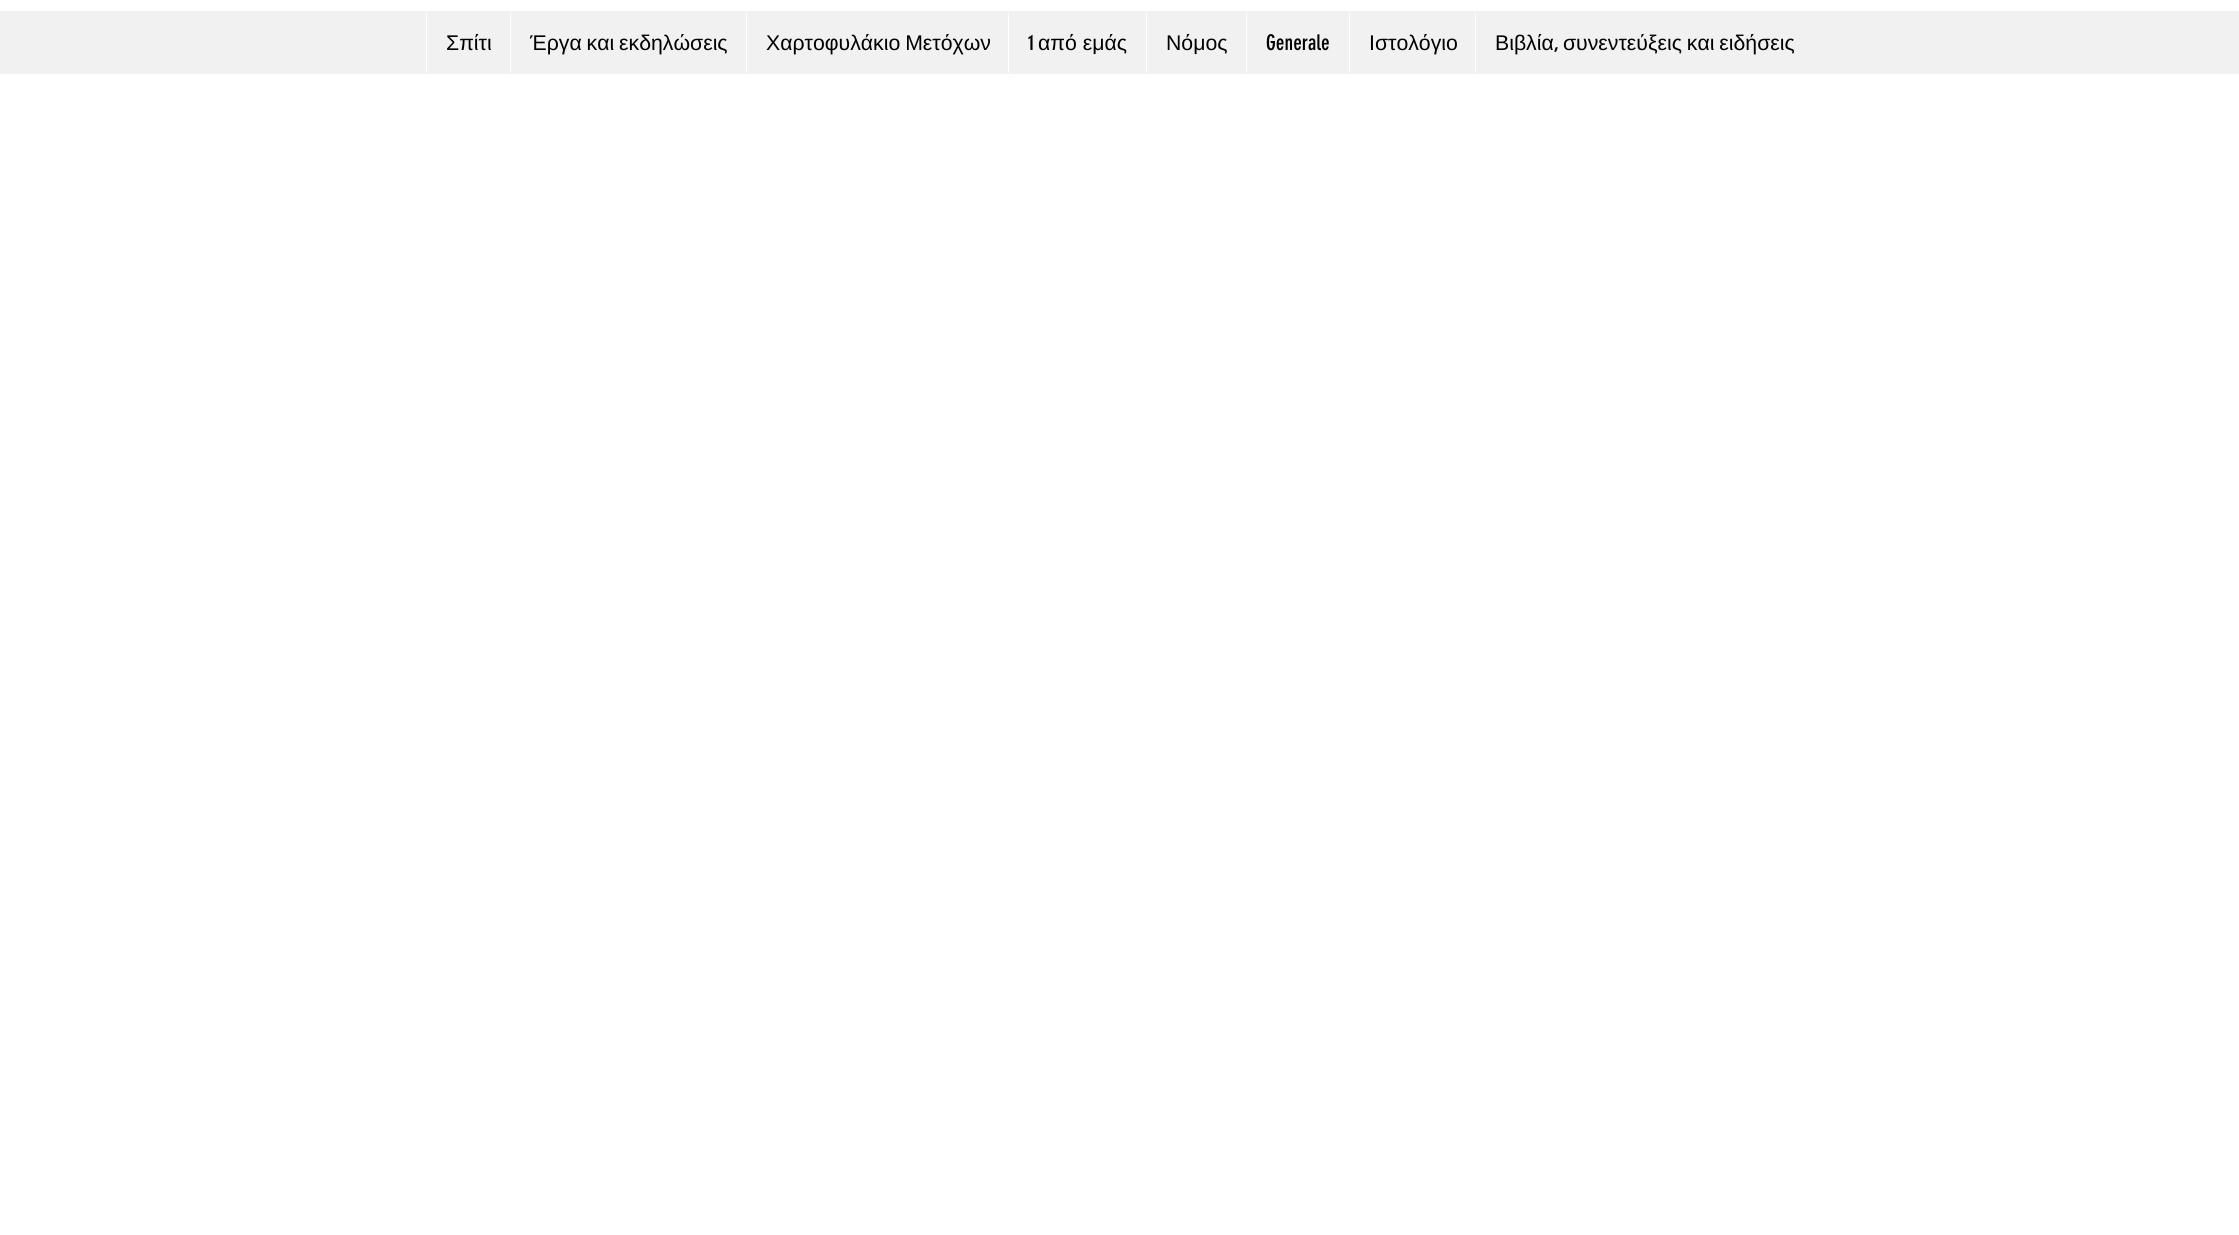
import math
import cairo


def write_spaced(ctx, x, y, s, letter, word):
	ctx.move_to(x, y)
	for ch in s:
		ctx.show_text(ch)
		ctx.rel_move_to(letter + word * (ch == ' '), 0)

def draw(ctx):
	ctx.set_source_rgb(1, 1, 1)
	ctx.paint()
	ctx.set_source_rgb(0.945, 0.945, 0.945)
	ctx.rectangle(0, 11, 2239, 63)
	ctx.fill()
	ctx.set_source_rgb(1, 1, 1)
	ctx.rectangle(426, 13, 1, 60)
	ctx.fill()
	ctx.select_font_face('Liberation Sans')
	ctx.set_font_size(21.25)
	ctx.set_source_rgb(0, 0, 0)
	ctx.move_to(446, 50)
	ctx.show_text('Σπίτι')
	ctx.set_source_rgb(1, 1, 1)
	ctx.rectangle(510, 13, 1, 60)
	ctx.fill()
	ctx.set_source_rgb(0, 0, 0)
	write_spaced(ctx, 530, 50, 'Έργα και εκδηλώσεις', 0, -1)
	ctx.set_source_rgb(1, 1, 1)
	ctx.rectangle(746, 13, 1, 60)
	ctx.fill()
	ctx.set_source_rgb(0, 0, 0)
	write_spaced(ctx, 766, 50, 'Χαρτοφυλάκιο Μετόχων', 0, -1)
	ctx.set_source_rgb(1, 1, 1)
	ctx.rectangle(1008, 13, 1, 60)
	ctx.fill()
	ctx.select_font_face('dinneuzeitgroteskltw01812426')
	ctx.set_source_rgb(0, 0, 0)
	ctx.move_to(1028, 50)
	ctx.show_text('1')
	ctx.select_font_face('Liberation Sans')
	ctx.move_to(1038, 50)
	ctx.show_text('από εμάς')
	ctx.set_source_rgb(1, 1, 1)
	ctx.rectangle(1146, 13, 1, 60)
	ctx.fill()
	ctx.set_source_rgb(0, 0, 0)
	ctx.move_to(1166, 50)
	ctx.show_text('Νόμος')
	ctx.set_source_rgb(1, 1, 1)
	ctx.rectangle(1246, 13, 1, 60)
	ctx.fill()
	ctx.select_font_face('dinneuzeitgroteskltw01812426')
	ctx.set_source_rgb(0, 0, 0)
	ctx.move_to(1266, 50)
	ctx.show_text('Generale')
	ctx.set_source_rgb(1, 1, 1)
	ctx.rectangle(1349, 13, 1, 60)
	ctx.fill()
	ctx.select_font_face('Liberation Sans')
	ctx.set_source_rgb(0, 0, 0)
	ctx.move_to(1369, 50)
	ctx.show_text('Ιστολόγιο')
	ctx.set_source_rgb(1, 1, 1)
	ctx.rectangle(1475, 13, 1, 60)
	ctx.fill()
	ctx.set_source_rgb(0, 0, 0)
	ctx.move_to(1495, 50)
	ctx.show_text('Βιβλία')
	ctx.select_font_face('dinneuzeitgroteskltw01812426')
	ctx.move_to(1554, 50)
	ctx.show_text(',')
	ctx.select_font_face('Liberation Sans')
	write_spaced(ctx, 1563, 50, 'συνεντεύξεις και ειδήσεις', 0, -1)


surface = cairo.ImageSurface(cairo.FORMAT_RGB24, 2239, 1235)
ctx = cairo.Context(surface)
options = cairo.FontOptions()
options.set_hint_metrics(cairo.HINT_METRICS_OFF)
options.set_hint_style(cairo.HINT_STYLE_NONE)
ctx.set_font_options(options)
ctx.set_miter_limit(4)
draw(ctx)
surface.write_to_png('image.png')
